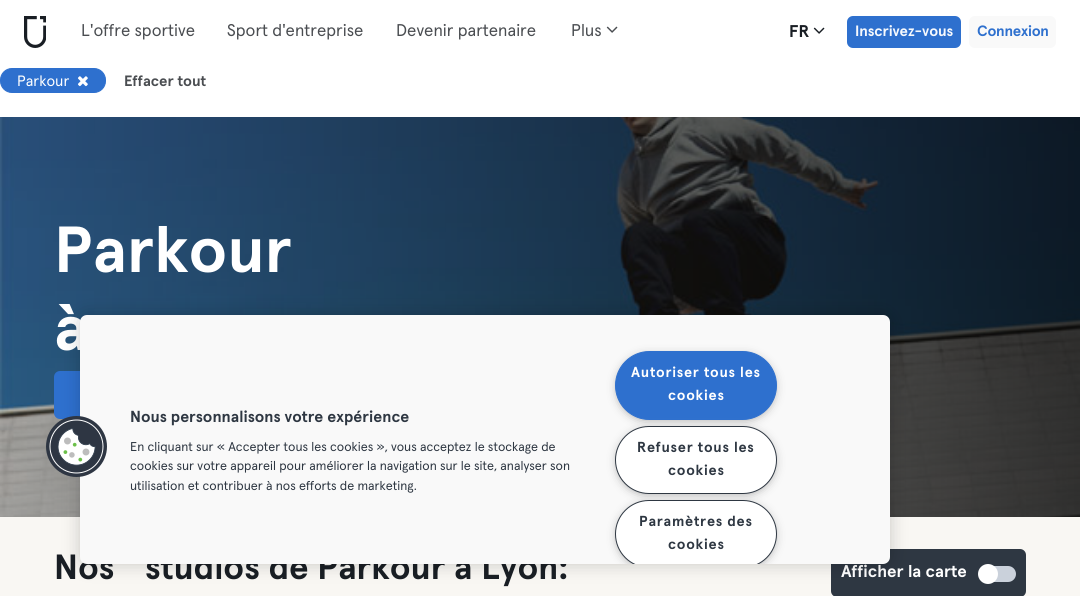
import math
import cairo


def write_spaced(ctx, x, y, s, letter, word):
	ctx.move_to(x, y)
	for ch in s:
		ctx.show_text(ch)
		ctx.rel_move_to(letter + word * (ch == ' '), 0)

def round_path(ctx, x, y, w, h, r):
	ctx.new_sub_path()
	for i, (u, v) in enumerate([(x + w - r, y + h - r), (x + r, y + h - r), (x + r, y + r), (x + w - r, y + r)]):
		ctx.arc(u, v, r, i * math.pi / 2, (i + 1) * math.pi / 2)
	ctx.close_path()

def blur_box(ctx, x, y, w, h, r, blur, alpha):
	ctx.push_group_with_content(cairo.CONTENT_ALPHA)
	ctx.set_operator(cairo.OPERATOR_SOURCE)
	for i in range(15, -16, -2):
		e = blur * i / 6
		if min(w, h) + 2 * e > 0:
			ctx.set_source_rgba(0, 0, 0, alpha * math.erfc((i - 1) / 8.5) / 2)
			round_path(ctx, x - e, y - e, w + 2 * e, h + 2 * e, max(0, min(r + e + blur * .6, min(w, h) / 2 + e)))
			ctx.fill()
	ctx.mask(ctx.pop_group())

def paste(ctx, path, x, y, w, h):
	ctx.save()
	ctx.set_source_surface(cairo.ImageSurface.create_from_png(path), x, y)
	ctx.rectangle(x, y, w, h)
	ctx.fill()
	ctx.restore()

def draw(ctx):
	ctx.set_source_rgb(1, 1, 1)
	ctx.paint()
	paste(ctx, 'media/1.png', 24, 16, 22, 32)
	ctx.select_font_face('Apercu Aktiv')
	ctx.set_font_size(17)
	ctx.set_source_rgb(0.29, 0.302, 0.318)
	for x, y, s in [
		(81, 36, 'L\'offre sportive'),
		(227, 36, 'Sport d\'entreprise'),
		(396, 36, 'Devenir partenaire'),
		(571, 36, 'Plus'),
	]:
		ctx.move_to(x, y)
		ctx.show_text(s)
	paste(ctx, 'media/2.png', 606, 26, 12, 7)
	ctx.select_font_face('Apercu Aktiv', cairo.FONT_SLANT_NORMAL, cairo.FONT_WEIGHT_BOLD)
	ctx.set_source_rgb(0.098, 0.118, 0.141)
	ctx.move_to(789, 37)
	ctx.show_text('FR')
	paste(ctx, 'media/3.png', 813, 27, 12, 7)
	ctx.set_source_rgb(0.18, 0.439, 0.808)
	round_path(ctx, 847, 16, 114, 32, 6)
	ctx.fill()
	ctx.set_font_size(15)
	ctx.set_source_rgb(0.961, 0.973, 0.992)
	write_spaced(ctx, 855, 36, 'Inscrivez-vous', -0.1, 0)
	ctx.set_source_rgb(0.976, 0.976, 0.976)
	round_path(ctx, 969, 16, 87, 32, 6)
	ctx.fill()
	ctx.set_source_rgb(0.18, 0.439, 0.808)
	write_spaced(ctx, 977, 36, 'Connexion', -0.25, 0)
	round_path(ctx, 0.5, 68.5, 105, 24, 11.5)
	ctx.fill_preserve()
	ctx.set_line_width(1)
	ctx.stroke()
	ctx.select_font_face('Apercu Aktiv')
	ctx.set_source_rgb(1, 1, 1)
	ctx.move_to(17, 86)
	ctx.show_text('Parkour')
	paste(ctx, 'media/4.png', 78, 76, 10, 11)
	ctx.select_font_face('Apercu Aktiv', cairo.FONT_SLANT_NORMAL, cairo.FONT_WEIGHT_BOLD)
	ctx.set_source_rgb(0.29, 0.302, 0.318)
	ctx.move_to(124, 86)
	ctx.show_text('Effacer tout')
	paste(ctx, 'media/5.png', 0, 117, 1080, 400)
	ctx.set_font_size(65)
	ctx.set_source_rgb(1, 1, 1)
	ctx.move_to(54, 272)
	ctx.show_text('Parkour')
	ctx.move_to(54, 350)
	ctx.show_text('à')
	ctx.set_source_rgb(0.18, 0.439, 0.808)
	round_path(ctx, 54, 371, 309, 48, 6)
	ctx.fill()
	ctx.set_source_rgb(0.973, 0.965, 0.953)
	ctx.rectangle(0, 517, 1080, 79)
	ctx.fill()
	ctx.set_font_size(35)
	ctx.set_source_rgb(0.098, 0.118, 0.141)
	ctx.move_to(54, 579)
	ctx.show_text('Nos')
	ctx.move_to(145, 579)
	ctx.show_text('studios de Parkour à Lyon:')
	ctx.set_source_rgb(0.18, 0.216, 0.259)
	round_path(ctx, 831, 549, 195, 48, 6)
	ctx.fill()
	ctx.set_font_size(17)
	ctx.set_source_rgb(1, 1, 1)
	ctx.move_to(841, 577)
	ctx.show_text('Afficher la carte')
	ctx.set_source_rgb(0.792, 0.82, 0.859)
	round_path(ctx, 980, 566, 36, 16, 8)
	ctx.fill()
	ctx.set_source_rgb(1, 1, 1)
	ctx.arc(988, 574, 10, 0, 2 * math.pi)
	ctx.fill()
	ctx.set_source_rgb(0, 0, 0)
	blur_box(ctx, 80, 315, 810, 249, 7, 9, 0.2)
	ctx.set_source_rgb(0.976, 0.976, 0.976)
	round_path(ctx, 80, 315, 810, 249, 7)
	ctx.fill()
	paste(ctx, 'media/6.png', 46, 416, 61, 61)
	ctx.set_font_size(16)
	ctx.set_source_rgb(0.18, 0.216, 0.259)
	ctx.move_to(130, 422)
	ctx.show_text('Nous personnalisons votre expérience')
	ctx.select_font_face('Apercu Aktiv')
	ctx.set_font_size(12.8)
	for x, y, s in [
		(130, 451, 'En cliquant sur « Accepter tous les cookies », vous acceptez le stockage de'),
		(130, 470, 'cookies sur votre appareil pour améliorer la navigation sur le site, analyser son'),
		(130, 490, 'utilisation et contribuer à nos efforts de marketing.'),
	]:
		ctx.move_to(x, y)
		ctx.show_text(s)
	ctx.set_source_rgb(0.6, 0.6, 0.6)
	blur_box(ctx, 618, 356, 156, 63, 31.5, 5, 1)
	ctx.set_source_rgb(0.18, 0.439, 0.808)
	round_path(ctx, 615.5, 351.5, 161, 68, 34)
	ctx.fill_preserve()
	ctx.stroke()
	ctx.select_font_face('Apercu Aktiv', cairo.FONT_SLANT_NORMAL, cairo.FONT_WEIGHT_BOLD)
	ctx.set_font_size(14.5)
	ctx.set_source_rgb(1, 1, 1)
	write_spaced(ctx, 631, 377, 'Autoriser tous les', 0.75, 0)
	write_spaced(ctx, 668, 400, 'cookies', 0.75, 0)
	ctx.set_source_rgb(0.6, 0.6, 0.6)
	blur_box(ctx, 618, 431, 156, 62, 31, 5, 1)
	ctx.set_source_rgb(1, 1, 1)
	round_path(ctx, 615.5, 426.5, 161, 67, 33.5)
	ctx.fill_preserve()
	ctx.set_source_rgb(0.18, 0.216, 0.259)
	ctx.stroke()
	write_spaced(ctx, 637, 452, 'Refuser tous les', 0.75, 0)
	write_spaced(ctx, 668, 475, 'cookies', 0.75, 0)
	ctx.save()
	ctx.rectangle(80, 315, 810, 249)
	ctx.clip()
	ctx.set_source_rgb(0.6, 0.6, 0.6)
	blur_box(ctx, 618, 505, 156, 62, 31, 5, 1)
	ctx.restore()
	ctx.save()
	ctx.rectangle(80, 315, 810, 249)
	ctx.clip()
	ctx.set_source_rgb(1, 1, 1)
	round_path(ctx, 615.5, 500.5, 161, 67, 33.5)
	ctx.fill_preserve()
	ctx.set_source_rgb(0.18, 0.216, 0.259)
	ctx.stroke()
	ctx.restore()
	write_spaced(ctx, 639, 526, 'Paramètres des', 0.75, 0)
	write_spaced(ctx, 668, 549, 'cookies', 0.75, 0)


surface = cairo.ImageSurface(cairo.FORMAT_RGB24, 1080, 596)
ctx = cairo.Context(surface)
options = cairo.FontOptions()
options.set_hint_metrics(cairo.HINT_METRICS_OFF)
options.set_hint_style(cairo.HINT_STYLE_NONE)
ctx.set_font_options(options)
ctx.set_miter_limit(4)
draw(ctx)
surface.write_to_png('image.png')
